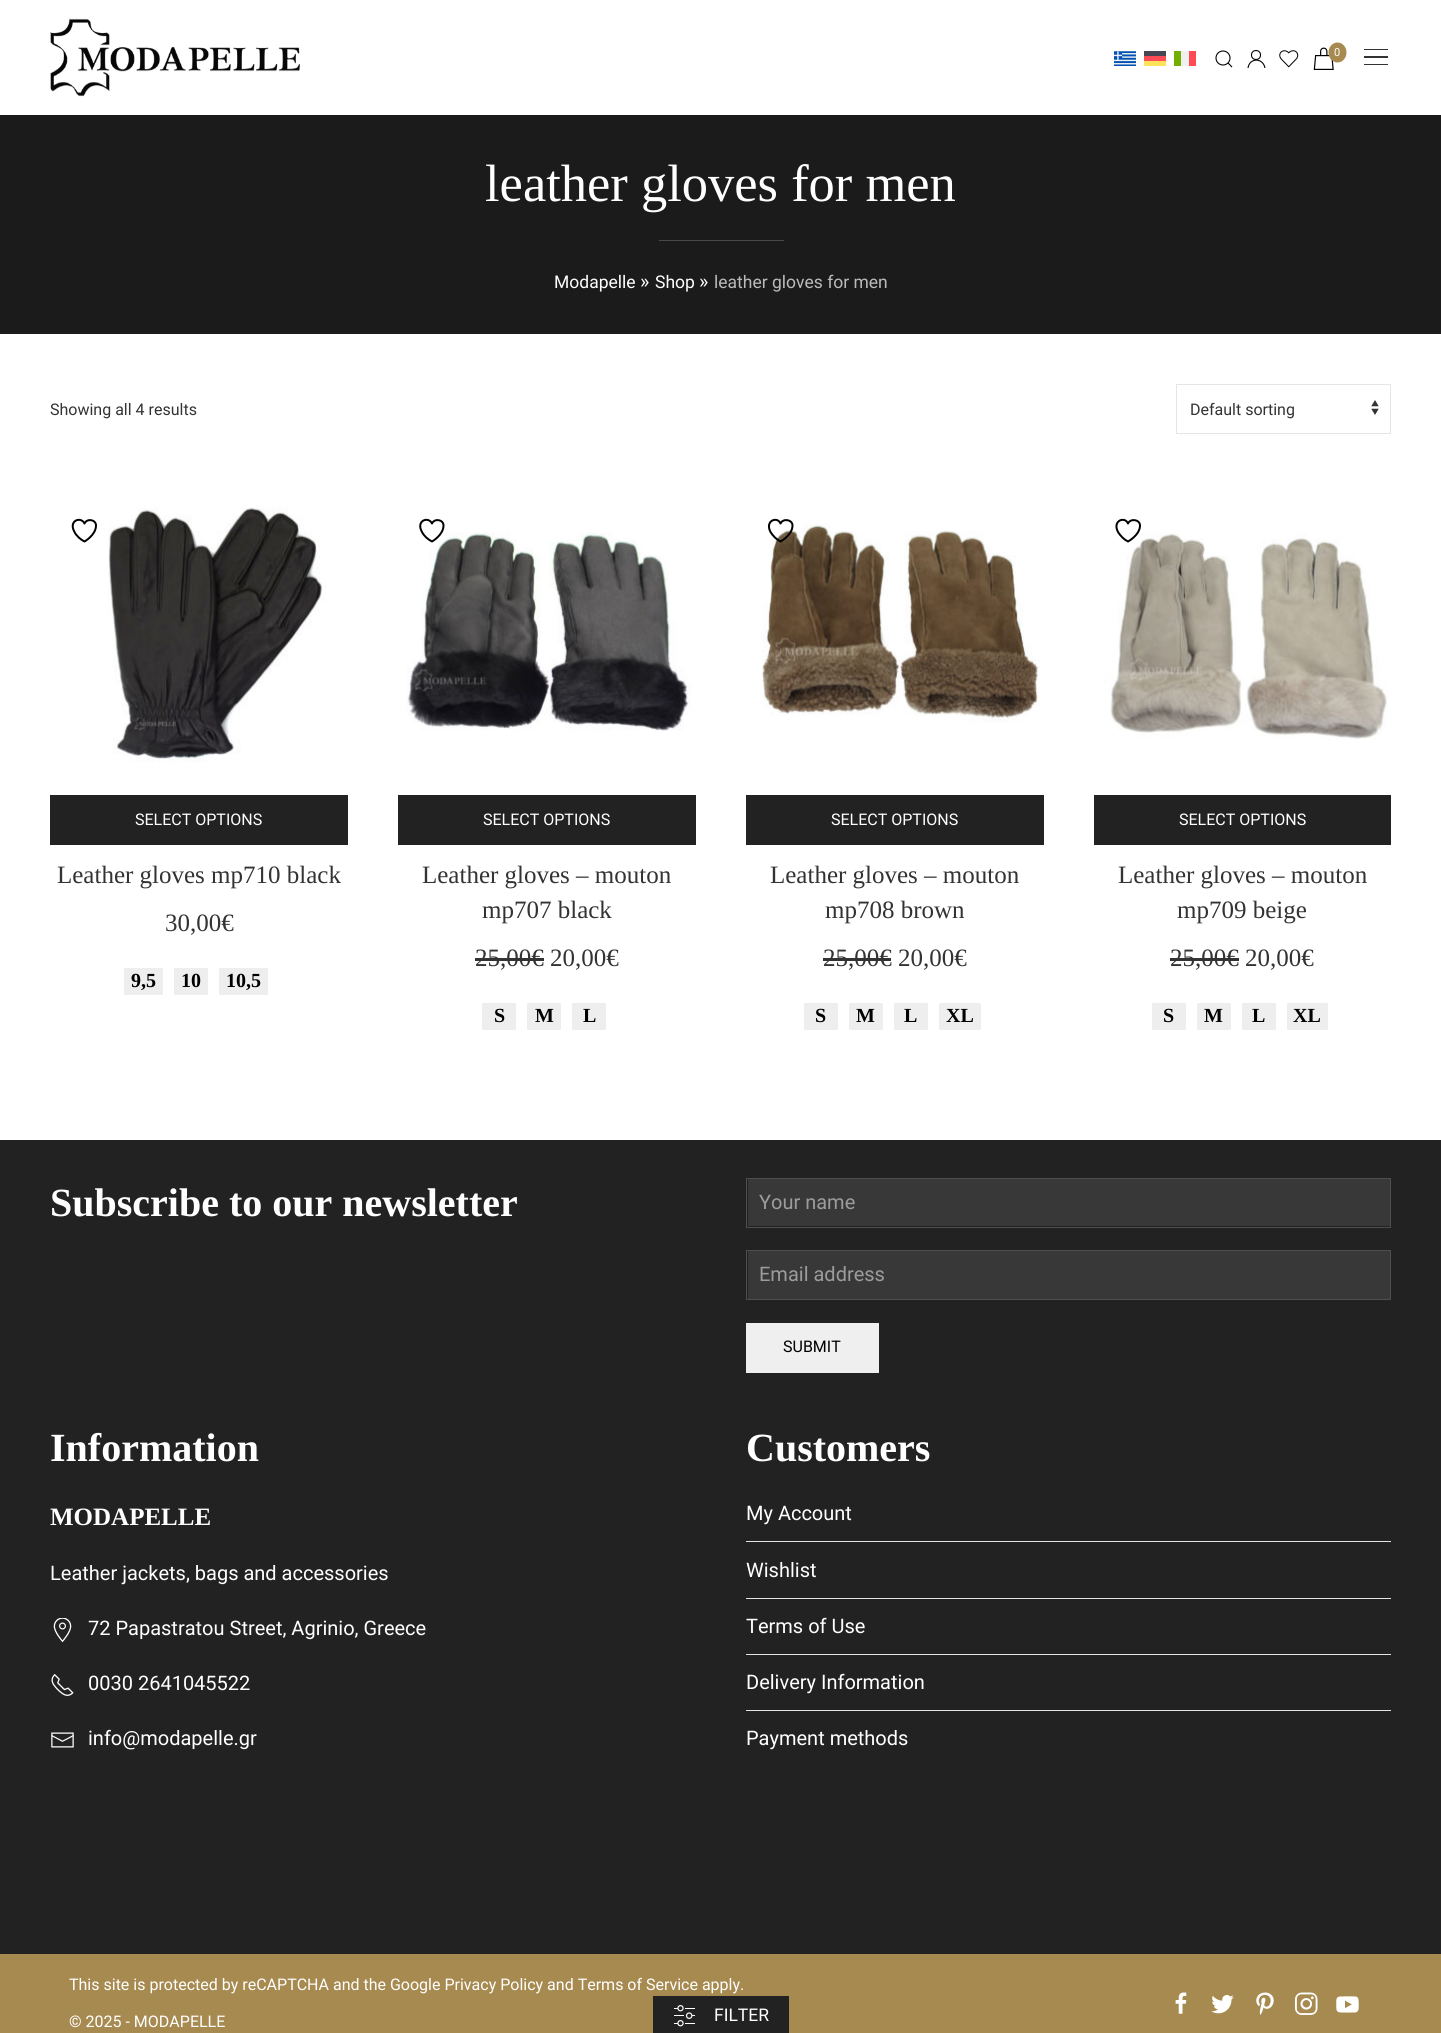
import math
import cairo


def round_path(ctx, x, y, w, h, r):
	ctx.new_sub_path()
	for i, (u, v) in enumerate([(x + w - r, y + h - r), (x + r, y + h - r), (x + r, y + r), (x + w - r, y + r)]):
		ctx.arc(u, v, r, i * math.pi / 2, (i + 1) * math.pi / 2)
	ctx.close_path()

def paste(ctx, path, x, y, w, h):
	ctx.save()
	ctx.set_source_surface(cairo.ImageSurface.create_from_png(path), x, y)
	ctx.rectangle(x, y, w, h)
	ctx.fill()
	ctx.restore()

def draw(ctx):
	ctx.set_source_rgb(1, 1, 1)
	ctx.paint()
	paste(ctx, 'media/1.png', 50, 18, 250, 79)
	paste(ctx, 'media/2.png', 1114, 51, 22, 15)
	ctx.set_source_rgb(0.275, 0.275, 0.333)
	ctx.rectangle(1144, 51, 22, 5)
	ctx.fill()
	ctx.set_source_rgb(1, 0.294, 0.333)
	ctx.rectangle(1144, 56, 22, 5)
	ctx.fill()
	ctx.set_source_rgb(1, 0.882, 0.353)
	ctx.rectangle(1144, 61, 22, 5)
	ctx.fill()
	ctx.set_source_rgb(0.451, 0.686, 0)
	ctx.rectangle(1174, 51, 7, 15)
	ctx.fill()
	ctx.set_source_rgb(0.941, 0.941, 0.941)
	ctx.rectangle(1181, 51, 8, 15)
	ctx.fill()
	ctx.set_source_rgb(1, 0.294, 0.333)
	ctx.rectangle(1189, 51, 7, 15)
	ctx.fill()
	ctx.arc(1223, 58, 7, 0, 2 * math.pi)
	ctx.set_source_rgb(0, 0, 0)
	ctx.set_line_width(1.1)
	ctx.stroke()
	ctx.new_path()
	ctx.move_to(1228, 63)
	ctx.line_to(1232, 67)
	ctx.close_path()
	ctx.stroke()
	ctx.arc(1256, 55, 4.5, 0, 2 * math.pi)
	ctx.stroke()
	ctx.new_path()
	ctx.move_to(1248, 68)
	ctx.curve_to(1249.5, 57.5, 1263, 57.5, 1265, 68)
	ctx.stroke()
	paste(ctx, 'media/3.png', 1279, 50, 20, 18)
	paste(ctx, 'media/4.png', 1313, 47, 21, 23)
	ctx.set_source_rgb(0.655, 0.541, 0.314)
	ctx.new_path()
	ctx.move_to(1337.5, 42.5)
	ctx.curve_to(1342.5, 42.5, 1346.5, 47, 1346.5, 52.5)
	ctx.curve_to(1346.5, 58, 1342.5, 62.5, 1337.5, 62.5)
	ctx.curve_to(1332.5, 62.5, 1328.5, 58, 1328.5, 52.5)
	ctx.curve_to(1328.5, 47, 1332.5, 42.5, 1337.5, 42.5)
	ctx.close_path()
	ctx.fill()
	ctx.select_font_face('Roboto')
	ctx.set_font_size(11)
	ctx.set_source_rgb(1, 1, 1)
	ctx.move_to(1334, 56)
	ctx.show_text('0')
	ctx.set_source_rgb(0.2, 0.2, 0.2)
	ctx.rectangle(1364, 49, 24, 1)
	ctx.rectangle(1364, 56, 24, 2)
	ctx.rectangle(1364, 64, 24, 1)
	ctx.fill()
	ctx.set_source_rgb(0.106, 0.106, 0.106)
	ctx.rectangle(0, 115, 1441, 219)
	ctx.fill()
	ctx.select_font_face('Tinos')
	ctx.set_font_size(52.5)
	ctx.set_source_rgb(1, 1, 1)
	ctx.move_to(485, 201)
	ctx.show_text('leather gloves for men')
	ctx.set_source_rgb(0.286, 0.286, 0.286)
	ctx.rectangle(659, 240, 125, 1)
	ctx.fill()
	ctx.select_font_face('Roboto')
	ctx.set_font_size(17.5)
	ctx.set_source_rgb(1, 1, 1)
	ctx.move_to(554, 288)
	ctx.show_text('Modapelle')
	ctx.set_font_size(20)
	ctx.move_to(640, 288)
	ctx.show_text('»')
	ctx.set_font_size(17.5)
	ctx.move_to(655, 288)
	ctx.show_text('Shop')
	ctx.set_font_size(20)
	ctx.move_to(699, 288)
	ctx.show_text('»')
	ctx.set_font_size(17.5)
	ctx.set_source_rgb(0.733, 0.733, 0.733)
	ctx.move_to(714, 288)
	ctx.show_text('leather gloves for men')
	ctx.set_font_size(16)
	ctx.set_source_rgb(0.2, 0.2, 0.2)
	ctx.move_to(50, 415)
	ctx.show_text('Showing all 4 results')
	paste(ctx, 'media/5.png', 1371, 400, 8, 15)
	ctx.rectangle(1176.5, 384.5, 214, 49)
	ctx.set_source_rgb(0.898, 0.898, 0.898)
	ctx.set_line_width(1)
	ctx.stroke()
	ctx.set_source_rgb(0.2, 0.2, 0.2)
	ctx.move_to(1190, 415)
	ctx.show_text('Default sorting')
	ctx.new_path()
	ctx.move_to(96, 525.5)
	ctx.curve_to(96, 519.5, 87, 518, 84.5, 523.5)
	ctx.curve_to(81, 516, 68, 520.5, 74.5, 532)
	ctx.curve_to(76.5, 536, 80.5, 539.5, 84.5, 541.5)
	ctx.curve_to(84.5, 541.5, 96, 535, 96, 525.5)
	ctx.close_path()
	ctx.set_source_rgb(0, 0, 0)
	ctx.set_line_width(2)
	ctx.set_line_cap(cairo.LINE_CAP_ROUND)
	ctx.set_line_join(cairo.LINE_JOIN_ROUND)
	ctx.stroke()
	paste(ctx, 'media/6.png', 108, 507, 218, 256)
	ctx.set_source_rgb(0.133, 0.133, 0.133)
	ctx.rectangle(50, 795, 298, 50)
	ctx.fill()
	ctx.set_source_rgb(1, 1, 1)
	ctx.move_to(135, 825)
	ctx.show_text('SELECT OPTIONS')
	ctx.select_font_face('Tinos')
	ctx.set_font_size(25)
	ctx.set_source_rgb(0.2, 0.2, 0.2)
	ctx.move_to(57, 883)
	ctx.show_text('Leather gloves mp710 black')
	ctx.move_to(165, 931)
	ctx.show_text('30,00€')
	ctx.set_source_rgb(0.933, 0.933, 0.933)
	round_path(ctx, 122.5, 966.5, 42, 30, 2.5)
	ctx.fill_preserve()
	ctx.set_source_rgb(1, 1, 1)
	ctx.set_line_width(3)
	ctx.set_line_cap(cairo.LINE_CAP_BUTT)
	ctx.set_line_join(cairo.LINE_JOIN_MITER)
	ctx.stroke()
	ctx.select_font_face('Tinos', cairo.FONT_SLANT_NORMAL, cairo.FONT_WEIGHT_BOLD)
	ctx.set_font_size(20)
	ctx.set_source_rgb(0, 0, 0)
	ctx.move_to(131, 987)
	ctx.show_text('9,5')
	ctx.set_source_rgb(0.933, 0.933, 0.933)
	round_path(ctx, 172.5, 966.5, 37, 30, 2.5)
	ctx.fill_preserve()
	ctx.set_source_rgb(1, 1, 1)
	ctx.stroke()
	ctx.set_source_rgb(0, 0, 0)
	ctx.move_to(181, 987)
	ctx.show_text('10')
	ctx.set_source_rgb(0.933, 0.933, 0.933)
	round_path(ctx, 217.5, 966.5, 52, 30, 2.5)
	ctx.fill_preserve()
	ctx.set_source_rgb(1, 1, 1)
	ctx.stroke()
	ctx.set_source_rgb(0, 0, 0)
	ctx.move_to(226, 987)
	ctx.show_text('10,5')
	paste(ctx, 'media/7.png', 406, 532, 285, 199)
	ctx.new_path()
	ctx.move_to(443.5, 525.5)
	ctx.curve_to(443.5, 519.5, 434.5, 518, 432, 523.5)
	ctx.curve_to(428.5, 516, 415.5, 520.5, 422, 532)
	ctx.curve_to(424, 536, 428, 539.5, 432, 541.5)
	ctx.curve_to(432, 541.5, 443.5, 535, 443.5, 525.5)
	ctx.close_path()
	ctx.set_line_width(2)
	ctx.set_line_cap(cairo.LINE_CAP_ROUND)
	ctx.set_line_join(cairo.LINE_JOIN_ROUND)
	ctx.stroke()
	ctx.set_source_rgb(0.133, 0.133, 0.133)
	ctx.rectangle(398, 795, 298, 50)
	ctx.fill()
	ctx.select_font_face('Roboto')
	ctx.set_font_size(16)
	ctx.set_source_rgb(1, 1, 1)
	ctx.move_to(483, 825)
	ctx.show_text('SELECT OPTIONS')
	ctx.select_font_face('Tinos')
	ctx.set_font_size(25)
	ctx.set_source_rgb(0.2, 0.2, 0.2)
	for x, y, s in [
		(422, 883, 'Leather gloves – mouton'),
		(482, 918, 'mp707 black'),
		(475, 966, '25,00€ 20,00€'),
	]:
		ctx.move_to(x, y)
		ctx.show_text(s)
	ctx.rectangle(475, 958, 69, 3)
	ctx.fill()
	ctx.set_source_rgb(0.933, 0.933, 0.933)
	round_path(ctx, 480.5, 1001.5, 37, 30, 2.5)
	ctx.fill_preserve()
	ctx.set_source_rgb(1, 1, 1)
	ctx.set_line_width(3)
	ctx.set_line_cap(cairo.LINE_CAP_BUTT)
	ctx.set_line_join(cairo.LINE_JOIN_MITER)
	ctx.stroke()
	ctx.select_font_face('Tinos', cairo.FONT_SLANT_NORMAL, cairo.FONT_WEIGHT_BOLD)
	ctx.set_font_size(20)
	ctx.set_source_rgb(0, 0, 0)
	ctx.move_to(494, 1022)
	ctx.show_text('S')
	ctx.set_source_rgb(0.933, 0.933, 0.933)
	round_path(ctx, 525.5, 1001.5, 37, 30, 2.5)
	ctx.fill_preserve()
	ctx.set_source_rgb(1, 1, 1)
	ctx.stroke()
	ctx.set_source_rgb(0, 0, 0)
	ctx.move_to(535, 1022)
	ctx.show_text('M')
	ctx.set_source_rgb(0.933, 0.933, 0.933)
	round_path(ctx, 570.5, 1001.5, 37, 30, 2.5)
	ctx.fill_preserve()
	ctx.set_source_rgb(1, 1, 1)
	ctx.stroke()
	ctx.set_source_rgb(0, 0, 0)
	ctx.move_to(583, 1022)
	ctx.show_text('L')
	paste(ctx, 'media/8.png', 762, 524, 278, 199)
	ctx.new_path()
	ctx.move_to(792.5, 525.5)
	ctx.curve_to(792.5, 519.5, 783, 518, 780.5, 523.5)
	ctx.curve_to(777.5, 516, 764.5, 520.5, 770.5, 532)
	ctx.curve_to(773, 536, 776.5, 539.5, 780.5, 541.5)
	ctx.curve_to(780.5, 541.5, 792.5, 535, 792.5, 525.5)
	ctx.close_path()
	ctx.set_line_width(2)
	ctx.set_line_cap(cairo.LINE_CAP_ROUND)
	ctx.set_line_join(cairo.LINE_JOIN_ROUND)
	ctx.stroke()
	ctx.set_source_rgb(0.133, 0.133, 0.133)
	ctx.rectangle(746, 795, 298, 50)
	ctx.fill()
	ctx.select_font_face('Roboto')
	ctx.set_font_size(16)
	ctx.set_source_rgb(1, 1, 1)
	ctx.move_to(831, 825)
	ctx.show_text('SELECT OPTIONS')
	ctx.select_font_face('Tinos')
	ctx.set_font_size(25)
	ctx.set_source_rgb(0.2, 0.2, 0.2)
	for x, y, s in [
		(770, 883, 'Leather gloves – mouton'),
		(825, 918, 'mp708 brown'),
		(823, 966, '25,00€ 20,00€'),
	]:
		ctx.move_to(x, y)
		ctx.show_text(s)
	ctx.rectangle(823, 958, 68, 3)
	ctx.fill()
	ctx.set_source_rgb(0.933, 0.933, 0.933)
	round_path(ctx, 802.5, 1001.5, 37, 30, 2.5)
	ctx.fill_preserve()
	ctx.set_source_rgb(1, 1, 1)
	ctx.set_line_width(3)
	ctx.set_line_cap(cairo.LINE_CAP_BUTT)
	ctx.set_line_join(cairo.LINE_JOIN_MITER)
	ctx.stroke()
	ctx.select_font_face('Tinos', cairo.FONT_SLANT_NORMAL, cairo.FONT_WEIGHT_BOLD)
	ctx.set_font_size(20)
	ctx.set_source_rgb(0, 0, 0)
	ctx.move_to(815, 1022)
	ctx.show_text('S')
	ctx.set_source_rgb(0.933, 0.933, 0.933)
	round_path(ctx, 847.5, 1001.5, 37, 30, 2.5)
	ctx.fill_preserve()
	ctx.set_source_rgb(1, 1, 1)
	ctx.stroke()
	ctx.set_source_rgb(0, 0, 0)
	ctx.move_to(856, 1022)
	ctx.show_text('M')
	ctx.set_source_rgb(0.933, 0.933, 0.933)
	round_path(ctx, 892.5, 1001.5, 37, 30, 2.5)
	ctx.fill_preserve()
	ctx.set_source_rgb(1, 1, 1)
	ctx.stroke()
	ctx.set_source_rgb(0, 0, 0)
	ctx.move_to(904, 1022)
	ctx.show_text('L')
	ctx.set_source_rgb(0.933, 0.933, 0.933)
	round_path(ctx, 937.5, 1001.5, 45, 30, 2.5)
	ctx.fill_preserve()
	ctx.set_source_rgb(1, 1, 1)
	ctx.stroke()
	ctx.set_source_rgb(0, 0, 0)
	ctx.move_to(946, 1022)
	ctx.show_text('XL')
	paste(ctx, 'media/9.png', 1104, 533, 283, 206)
	ctx.new_path()
	ctx.move_to(1140, 525.5)
	ctx.curve_to(1140, 519.5, 1130.5, 518, 1128, 523.5)
	ctx.curve_to(1125, 516, 1112, 520.5, 1118, 532)
	ctx.curve_to(1120.5, 536, 1124, 539.5, 1128, 541.5)
	ctx.curve_to(1128, 541.5, 1140, 535, 1140, 525.5)
	ctx.close_path()
	ctx.set_line_width(2)
	ctx.set_line_cap(cairo.LINE_CAP_ROUND)
	ctx.set_line_join(cairo.LINE_JOIN_ROUND)
	ctx.stroke()
	ctx.set_source_rgb(0.133, 0.133, 0.133)
	ctx.rectangle(1094, 795, 297, 50)
	ctx.fill()
	ctx.select_font_face('Roboto')
	ctx.set_font_size(16)
	ctx.set_source_rgb(1, 1, 1)
	ctx.move_to(1179, 825)
	ctx.show_text('SELECT OPTIONS')
	ctx.select_font_face('Tinos')
	ctx.set_font_size(25)
	ctx.set_source_rgb(0.2, 0.2, 0.2)
	for x, y, s in [
		(1118, 883, 'Leather gloves – mouton'),
		(1177, 918, 'mp709 beige'),
		(1170, 966, '25,00€ 20,00€'),
	]:
		ctx.move_to(x, y)
		ctx.show_text(s)
	ctx.rectangle(1170, 958, 69, 3)
	ctx.fill()
	ctx.set_source_rgb(0.933, 0.933, 0.933)
	round_path(ctx, 1150.5, 1001.5, 37, 30, 2.5)
	ctx.fill_preserve()
	ctx.set_source_rgb(1, 1, 1)
	ctx.set_line_width(3)
	ctx.set_line_cap(cairo.LINE_CAP_BUTT)
	ctx.set_line_join(cairo.LINE_JOIN_MITER)
	ctx.stroke()
	ctx.select_font_face('Tinos', cairo.FONT_SLANT_NORMAL, cairo.FONT_WEIGHT_BOLD)
	ctx.set_font_size(20)
	ctx.set_source_rgb(0, 0, 0)
	ctx.move_to(1163, 1022)
	ctx.show_text('S')
	ctx.set_source_rgb(0.933, 0.933, 0.933)
	round_path(ctx, 1195.5, 1001.5, 37, 30, 2.5)
	ctx.fill_preserve()
	ctx.set_source_rgb(1, 1, 1)
	ctx.stroke()
	ctx.set_source_rgb(0, 0, 0)
	ctx.move_to(1204, 1022)
	ctx.show_text('M')
	ctx.set_source_rgb(0.933, 0.933, 0.933)
	round_path(ctx, 1240.5, 1001.5, 37, 30, 2.5)
	ctx.fill_preserve()
	ctx.set_source_rgb(1, 1, 1)
	ctx.stroke()
	ctx.set_source_rgb(0, 0, 0)
	ctx.move_to(1252, 1022)
	ctx.show_text('L')
	ctx.set_source_rgb(0.933, 0.933, 0.933)
	round_path(ctx, 1285.5, 1001.5, 44, 30, 2.5)
	ctx.fill_preserve()
	ctx.set_source_rgb(1, 1, 1)
	ctx.stroke()
	ctx.set_source_rgb(0, 0, 0)
	ctx.move_to(1293, 1022)
	ctx.show_text('XL')
	ctx.set_source_rgb(0.133, 0.133, 0.133)
	ctx.rectangle(0, 1140, 1441, 814)
	ctx.fill()
	ctx.set_font_size(40)
	ctx.set_source_rgb(1, 1, 1)
	ctx.move_to(50, 1216)
	ctx.show_text('Subscribe to our newsletter')
	ctx.set_source_rgb(0.22, 0.22, 0.22)
	ctx.rectangle(748, 1179, 642, 47)
	ctx.fill()
	ctx.rectangle(746.5, 1178.5, 644, 49)
	ctx.set_source_rgb(0.306, 0.306, 0.306)
	ctx.set_line_width(1)
	ctx.stroke()
	ctx.select_font_face('Roboto')
	ctx.set_font_size(20)
	ctx.set_source_rgb(0.612, 0.612, 0.612)
	ctx.move_to(759, 1209)
	ctx.show_text('Your name')
	ctx.set_source_rgb(0.22, 0.22, 0.22)
	ctx.rectangle(748, 1251, 642, 48)
	ctx.fill()
	ctx.rectangle(746.5, 1250.5, 644, 49)
	ctx.set_source_rgb(0.306, 0.306, 0.306)
	ctx.stroke()
	ctx.set_source_rgb(0.612, 0.612, 0.612)
	ctx.move_to(759, 1281)
	ctx.show_text('Email address')
	ctx.set_source_rgb(0.937, 0.937, 0.937)
	ctx.rectangle(746, 1323, 133, 50)
	ctx.fill()
	ctx.set_font_size(16)
	ctx.set_source_rgb(0, 0, 0)
	ctx.move_to(783, 1352)
	ctx.show_text('SUBMIT')
	ctx.select_font_face('Tinos', cairo.FONT_SLANT_NORMAL, cairo.FONT_WEIGHT_BOLD)
	ctx.set_font_size(40)
	ctx.set_source_rgb(1, 1, 1)
	ctx.move_to(50, 1461)
	ctx.show_text('Information')
	ctx.set_font_size(25)
	ctx.move_to(50, 1525)
	ctx.show_text('MODAPELLE')
	ctx.select_font_face('Roboto')
	ctx.set_font_size(20)
	ctx.move_to(50, 1580)
	ctx.show_text('Leather jackets, bags and accessories')
	paste(ctx, 'media/10.png', 53, 1618, 19, 25)
	ctx.move_to(88, 1635)
	ctx.show_text('72 Papastratou Street, Agrinio, Greece')
	paste(ctx, 'media/11.png', 51, 1674, 23, 22)
	ctx.move_to(88, 1690)
	ctx.show_text('0030 2641045522')
	paste(ctx, 'media/12.png', 51, 1732, 23, 16)
	ctx.move_to(88, 1745)
	ctx.show_text('info@modapelle.gr')
	ctx.select_font_face('Tinos', cairo.FONT_SLANT_NORMAL, cairo.FONT_WEIGHT_BOLD)
	ctx.set_font_size(40)
	ctx.move_to(746, 1461)
	ctx.show_text('Customers')
	ctx.select_font_face('Roboto')
	ctx.set_font_size(20)
	ctx.move_to(746, 1520)
	ctx.show_text('My Account')
	ctx.set_source_rgb(0.898, 0.898, 0.898)
	ctx.rectangle(746, 1541, 645, 1)
	ctx.fill()
	ctx.set_source_rgb(1, 1, 1)
	ctx.move_to(746, 1577)
	ctx.show_text('Wishlist')
	ctx.set_source_rgb(0.898, 0.898, 0.898)
	ctx.rectangle(746, 1598, 645, 1)
	ctx.fill()
	ctx.set_source_rgb(1, 1, 1)
	ctx.move_to(746, 1633)
	ctx.show_text('Terms of Use')
	ctx.set_source_rgb(0.898, 0.898, 0.898)
	ctx.rectangle(746, 1654, 645, 1)
	ctx.fill()
	ctx.set_source_rgb(1, 1, 1)
	ctx.move_to(746, 1689)
	ctx.show_text('Delivery Information')
	ctx.set_source_rgb(0.898, 0.898, 0.898)
	ctx.rectangle(746, 1710, 645, 1)
	ctx.fill()
	ctx.set_source_rgb(1, 1, 1)
	ctx.move_to(746, 1745)
	ctx.show_text('Payment methods')
	ctx.set_source_rgb(0.655, 0.541, 0.314)
	ctx.rectangle(0, 1954, 1441, 79)
	ctx.fill()
	ctx.set_font_size(16)
	ctx.set_source_rgb(1, 1, 1)
	ctx.move_to(69, 1990)
	ctx.show_text('This site is protected by reCAPTCHA and the Google Privacy Policy and Terms of Service apply.')
	ctx.move_to(69, 2027)
	ctx.show_text('© 2025 - MODAPELLE')
	paste(ctx, 'media/13.png', 1175, 1992, 12, 22)
	paste(ctx, 'media/14.png', 1211, 1995, 23, 19)
	paste(ctx, 'media/15.png', 1256, 1992, 18, 23)
	paste(ctx, 'media/16.png', 1295, 1992, 23, 23)
	paste(ctx, 'media/17.png', 1336, 1996, 23, 17)
	ctx.set_source_rgb(0.133, 0.133, 0.133)
	ctx.rectangle(653, 1996, 136, 37)
	ctx.fill()
	paste(ctx, 'media/18.png', 674, 2005, 21, 22)
	ctx.set_font_size(17.5)
	ctx.set_source_rgb(1, 1, 1)
	ctx.move_to(714, 2021)
	ctx.show_text('FILTER')


surface = cairo.ImageSurface(cairo.FORMAT_RGB24, 1441, 2033)
ctx = cairo.Context(surface)
options = cairo.FontOptions()
options.set_hint_metrics(cairo.HINT_METRICS_OFF)
options.set_hint_style(cairo.HINT_STYLE_NONE)
ctx.set_font_options(options)
ctx.set_miter_limit(4)
draw(ctx)
surface.write_to_png('image.png')
